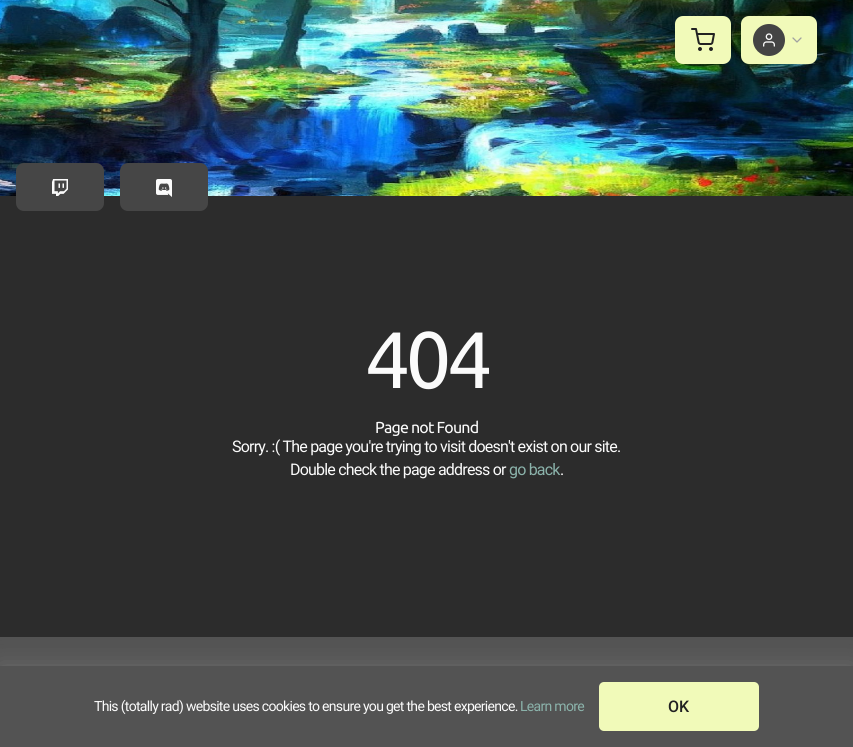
import math
import cairo


def write_spaced(ctx, x, y, s, letter, word):
	ctx.move_to(x, y)
	for ch in s:
		ctx.show_text(ch)
		ctx.rel_move_to(letter + word * (ch == ' '), 0)

def round_path(ctx, x, y, w, h, r):
	ctx.new_sub_path()
	for i, (u, v) in enumerate([(x + w - r, y + h - r), (x + r, y + h - r), (x + r, y + r), (x + w - r, y + r)]):
		ctx.arc(u, v, r, i * math.pi / 2, (i + 1) * math.pi / 2)
	ctx.close_path()

def blur_box(ctx, x, y, w, h, r, blur, alpha):
	ctx.push_group_with_content(cairo.CONTENT_ALPHA)
	ctx.set_operator(cairo.OPERATOR_SOURCE)
	for i in range(15, -16, -2):
		e = blur * i / 6
		if min(w, h) + 2 * e > 0:
			ctx.set_source_rgba(0, 0, 0, alpha * math.erfc((i - 1) / 8.5) / 2)
			round_path(ctx, x - e, y - e, w + 2 * e, h + 2 * e, max(0, min(r + e + blur * .6, min(w, h) / 2 + e)))
			ctx.fill()
	ctx.mask(ctx.pop_group())

def paste(ctx, path, x, y, w, h):
	ctx.save()
	ctx.set_source_surface(cairo.ImageSurface.create_from_png(path), x, y)
	ctx.rectangle(x, y, w, h)
	ctx.fill()
	ctx.restore()

def draw(ctx):
	ctx.set_source_rgb(0.173, 0.173, 0.173)
	ctx.paint()
	paste(ctx, 'media/1.png', 0, 0, 853, 196)
	ctx.set_source_rgb(0.945, 0.98, 0.725)
	round_path(ctx, 675, 16, 56, 48, 8)
	ctx.fill()
	paste(ctx, 'media/2.png', 691, 28, 24, 23)
	round_path(ctx, 741, 16, 76, 48, 8)
	ctx.fill()
	ctx.set_source_rgb(0.267, 0.267, 0.267)
	ctx.arc(769, 40, 16, 0, 2 * math.pi)
	ctx.fill()
	paste(ctx, 'media/3.png', 763, 33, 12, 14)
	ctx.new_path()
	ctx.move_to(793, 38)
	ctx.line_to(797, 42)
	ctx.line_to(801, 38)
	ctx.set_source_rgb(0.631, 0.631, 0.631)
	ctx.set_line_width(1.3)
	ctx.set_line_cap(cairo.LINE_CAP_ROUND)
	ctx.set_line_join(cairo.LINE_JOIN_ROUND)
	ctx.stroke()
	ctx.set_source_rgb(0.275, 0.275, 0.275)
	round_path(ctx, 16, 163, 88, 48, 8)
	ctx.fill()
	paste(ctx, 'media/4.png', 52, 179, 16, 17)
	round_path(ctx, 120, 163, 88, 48, 8)
	ctx.fill()
	paste(ctx, 'media/5.png', 156, 179, 16, 18)
	ctx.select_font_face('Ubuntu')
	ctx.set_font_size(80)
	ctx.set_source_rgb(0.984, 0.984, 0.984)
	write_spaced(ctx, 365, 388, '404', -4, 0)
	ctx.set_font_size(16)
	write_spaced(ctx, 375, 433, 'Page not Found', -0.8, 0)
	ctx.select_font_face('Roboto')
	write_spaced(ctx, 232, 452, 'Sorry. :( The page you\'re trying to visit doesn\'t exist on our site.', -0.8, 0)
	write_spaced(ctx, 290, 475, 'Double check the page address or', -0.8, 0)
	ctx.set_source_rgb(0.545, 0.702, 0.671)
	write_spaced(ctx, 509, 475, 'go back', -0.8, 0)
	ctx.set_source_rgb(0.984, 0.984, 0.984)
	write_spaced(ctx, 560, 475, '.', -0.8, 0)
	ctx.set_source_rgb(0.325, 0.325, 0.325)
	ctx.rectangle(0, 637, 853, 29)
	ctx.fill()
	ctx.set_source_rgb(0.651, 0.651, 0.651)
	blur_box(ctx, 0, 666, 853, 81, 0, 12, 0.3)
	ctx.set_source_rgb(0.325, 0.325, 0.325)
	ctx.rectangle(0, 666, 853, 81)
	ctx.fill()
	ctx.set_font_size(14)
	ctx.set_source_rgb(0.984, 0.984, 0.984)
	write_spaced(ctx, 94, 711, 'This (totally rad) website uses cookies to ensure you get the best experience.', -0.7, 0)
	ctx.set_source_rgb(0.545, 0.702, 0.671)
	write_spaced(ctx, 520, 711, 'Learn more', -0.7, 0)
	ctx.set_source_rgb(0.945, 0.98, 0.725)
	round_path(ctx, 599, 682, 160, 49, 5)
	ctx.fill()
	ctx.select_font_face('Roboto Medium')
	ctx.set_font_size(16)
	ctx.set_source_rgb(0.133, 0.133, 0.133)
	ctx.move_to(668, 712)
	ctx.show_text('OK')


surface = cairo.ImageSurface(cairo.FORMAT_RGB24, 853, 747)
ctx = cairo.Context(surface)
options = cairo.FontOptions()
options.set_hint_metrics(cairo.HINT_METRICS_OFF)
options.set_hint_style(cairo.HINT_STYLE_NONE)
ctx.set_font_options(options)
ctx.set_miter_limit(4)
draw(ctx)
surface.write_to_png('image.png')
